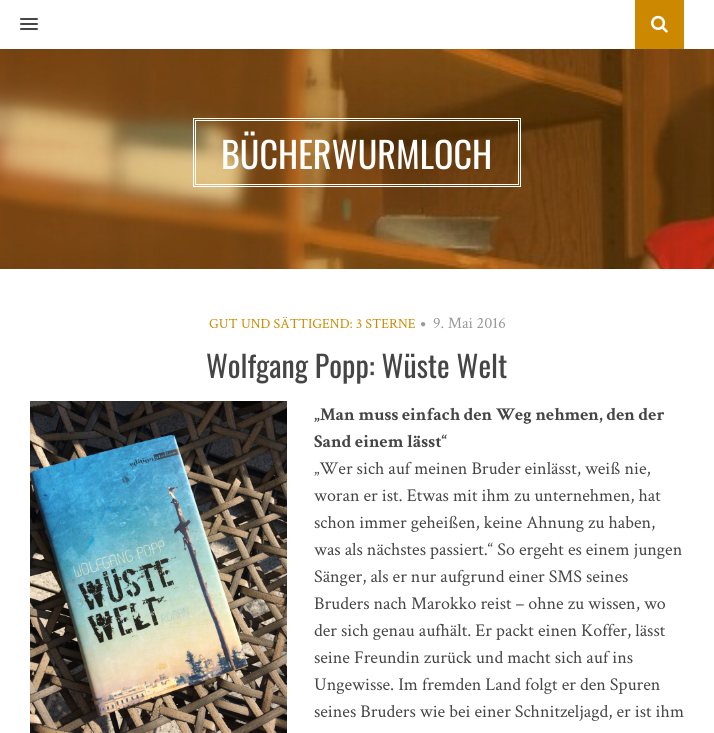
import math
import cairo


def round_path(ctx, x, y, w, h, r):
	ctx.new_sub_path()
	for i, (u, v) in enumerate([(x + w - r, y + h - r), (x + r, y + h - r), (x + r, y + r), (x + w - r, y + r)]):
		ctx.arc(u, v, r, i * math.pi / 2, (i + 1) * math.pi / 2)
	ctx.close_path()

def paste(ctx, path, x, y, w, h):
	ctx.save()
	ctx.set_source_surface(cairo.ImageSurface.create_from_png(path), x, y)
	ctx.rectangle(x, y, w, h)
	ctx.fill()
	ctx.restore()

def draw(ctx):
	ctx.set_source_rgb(1, 1, 1)
	ctx.paint()
	ctx.set_source_rgb(0.271, 0.271, 0.271)
	round_path(ctx, 20, 18, 18, 2, 1)
	ctx.fill()
	round_path(ctx, 20, 23, 18, 2, 1)
	ctx.fill()
	round_path(ctx, 20, 28, 18, 2, 1)
	ctx.fill()
	ctx.set_source_rgb(0.8, 0.537, 0)
	ctx.rectangle(635, 0, 49, 49)
	ctx.fill()
	paste(ctx, 'media/1.png', 651, 15, 17, 18)
	paste(ctx, 'media/2.png', 0, 49, 714, 220)
	ctx.rectangle(193.5, 118.5, 327, 68)
	ctx.set_source_rgb(1, 1, 1)
	ctx.set_line_width(1)
	ctx.stroke()
	ctx.rectangle(195.5, 120.5, 323, 64)
	ctx.stroke()
	ctx.select_font_face('Oswald')
	ctx.set_font_size(36)
	ctx.move_to(221, 169)
	ctx.show_text('BÜCHERWURMLOCH')
	ctx.select_font_face('Crimson Text')
	ctx.set_font_size(14)
	ctx.set_source_rgb(0.8, 0.537, 0)
	ctx.move_to(209, 328)
	ctx.show_text('GUT UND SÄTTIGEND: 3 STERNE')
	paste(ctx, 'media/3.png', 421, 322, 5, 5)
	ctx.set_font_size(16)
	ctx.set_source_rgb(0.6, 0.6, 0.6)
	ctx.move_to(433, 328)
	ctx.show_text('9. Mai 2016')
	ctx.select_font_face('Oswald')
	ctx.set_font_size(30)
	ctx.set_source_rgb(0.271, 0.271, 0.271)
	ctx.move_to(206, 378)
	ctx.show_text('Wolfgang Popp: Wüste Welt')
	paste(ctx, 'media/4.png', 30, 401, 257, 332)
	ctx.select_font_face('Crimson Text', cairo.FONT_SLANT_NORMAL, cairo.FONT_WEIGHT_BOLD)
	ctx.set_font_size(18)
	ctx.move_to(314, 420)
	ctx.show_text('„Man muss einfach den Weg nehmen, den der')
	ctx.move_to(314, 447)
	ctx.show_text('Sand einem lässt“')
	ctx.select_font_face('Crimson Text')
	for x, y, s in [
		(314, 474, '„Wer sich auf meinen Bruder einlässt, weiß nie,'),
		(314, 501, 'woran er ist. Etwas mit ihm zu unternehmen, hat'),
		(314, 528, 'schon immer geheißen, keine Ahnung zu haben,'),
		(314, 555, 'was als nächstes passiert.“ So ergeht es einem jungen'),
		(314, 582, 'Sänger, als er nur aufgrund einer SMS seines'),
		(314, 609, 'Bruders nach Marokko reist – ohne zu wissen, wo'),
		(314, 636, 'der sich genau aufhält. Er packt einen Koffer, lässt'),
		(314, 663, 'seine Freundin zurück und macht sich auf ins'),
		(314, 690, 'Ungewisse. Im fremden Land folgt er den Spuren'),
		(314, 717, 'seines Bruders wie bei einer Schnitzeljagd, er ist ihm'),
	]:
		ctx.move_to(x, y)
		ctx.show_text(s)


surface = cairo.ImageSurface(cairo.FORMAT_RGB24, 714, 733)
ctx = cairo.Context(surface)
options = cairo.FontOptions()
options.set_hint_metrics(cairo.HINT_METRICS_OFF)
options.set_hint_style(cairo.HINT_STYLE_NONE)
ctx.set_font_options(options)
ctx.set_miter_limit(4)
draw(ctx)
surface.write_to_png('image.png')
